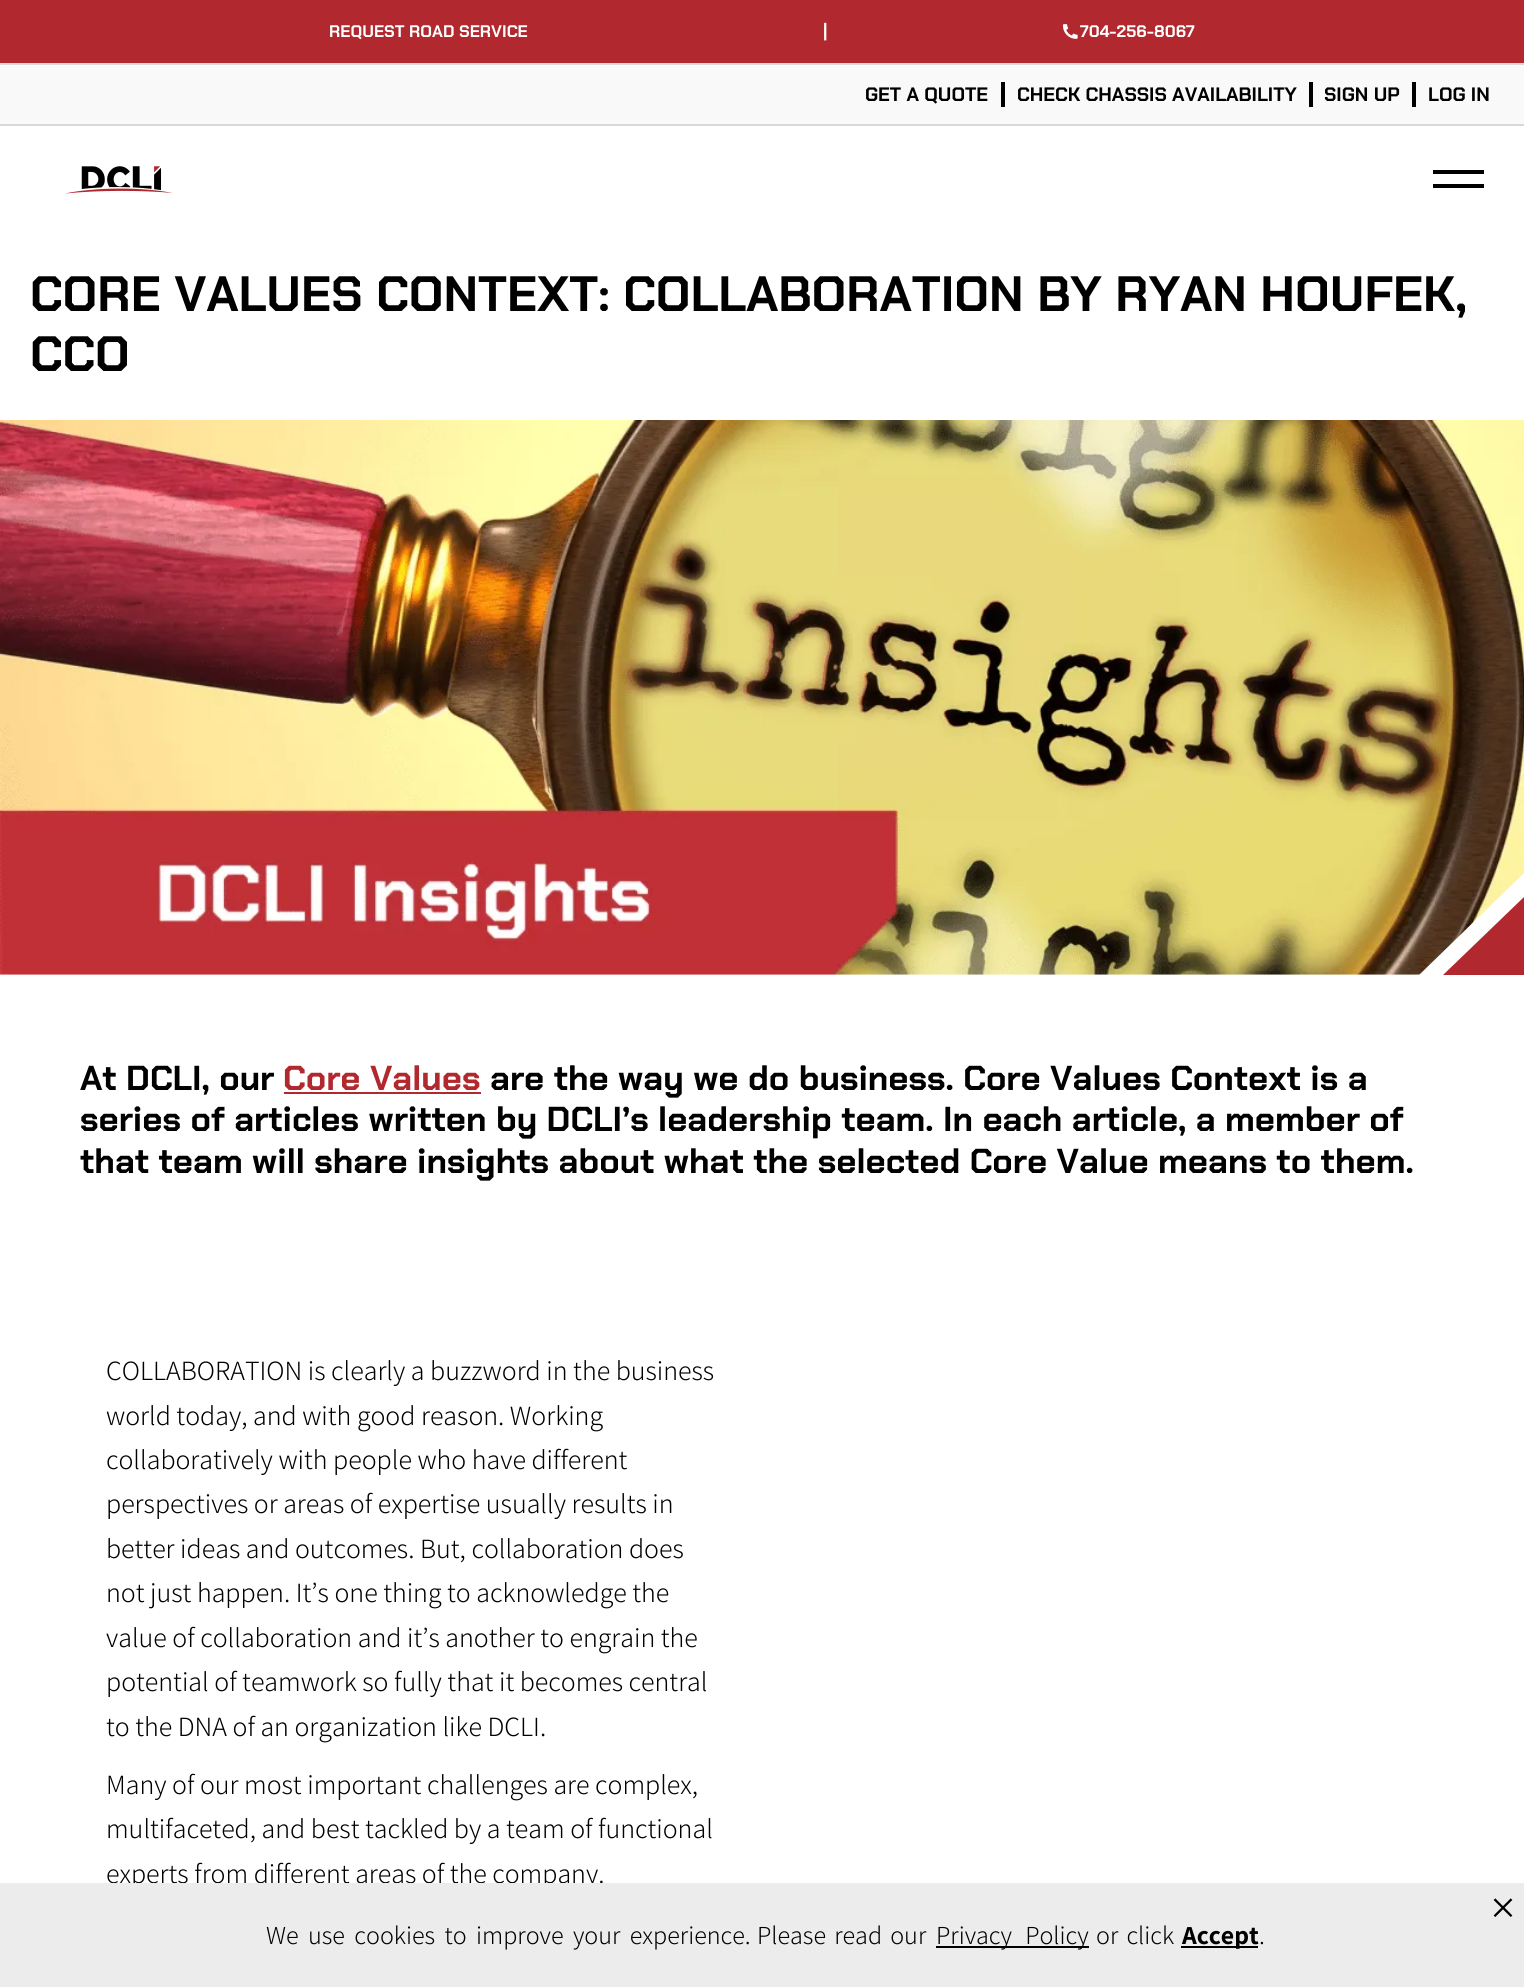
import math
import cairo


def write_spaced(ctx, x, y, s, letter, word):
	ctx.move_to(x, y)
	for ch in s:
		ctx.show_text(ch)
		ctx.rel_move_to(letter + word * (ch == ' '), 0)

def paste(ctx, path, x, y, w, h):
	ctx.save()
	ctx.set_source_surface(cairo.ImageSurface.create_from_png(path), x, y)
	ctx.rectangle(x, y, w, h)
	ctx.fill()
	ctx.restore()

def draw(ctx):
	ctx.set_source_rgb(1, 1, 1)
	ctx.paint()
	ctx.set_source_rgb(0.847, 0.847, 0.847)
	ctx.rectangle(0, 63, 1524, 2)
	ctx.fill()
	ctx.set_source_rgb(0.694, 0.157, 0.18)
	ctx.rectangle(0, 0, 1524, 63)
	ctx.fill()
	ctx.select_font_face('Chakra Petch', cairo.FONT_SLANT_NORMAL, cairo.FONT_WEIGHT_BOLD)
	ctx.set_font_size(16.75)
	ctx.set_source_rgb(1, 1, 1)
	ctx.move_to(329, 37)
	ctx.show_text('REQUEST ROAD SERVICE')
	ctx.move_to(823, 37)
	ctx.show_text('|')
	paste(ctx, 'media/1.png', 1062, 24, 16, 15)
	ctx.move_to(1080, 37)
	ctx.show_text('704-256-8067')
	ctx.set_source_rgb(0.973, 0.973, 0.973)
	ctx.rectangle(0, 65, 1524, 59)
	ctx.fill()
	ctx.set_source_rgb(0.847, 0.847, 0.847)
	ctx.rectangle(0, 124, 1524, 2)
	ctx.fill()
	ctx.set_font_size(19.4)
	ctx.set_source_rgb(0, 0, 0)
	ctx.move_to(865, 101)
	ctx.show_text('GET A QUOTE')
	ctx.rectangle(1001, 82, 4, 25)
	ctx.fill()
	ctx.move_to(1017, 101)
	ctx.show_text('CHECK CHASSIS AVAILABILITY')
	ctx.rectangle(1309, 82, 4, 25)
	ctx.fill()
	ctx.move_to(1324, 101)
	ctx.show_text('SIGN UP')
	ctx.rectangle(1412, 82, 4, 25)
	ctx.fill()
	ctx.move_to(1428, 101)
	ctx.show_text('LOG IN')
	paste(ctx, 'media/2.png', 65, 166, 108, 28)
	ctx.rectangle(1433, 170, 51, 4)
	ctx.fill()
	ctx.rectangle(1433, 184, 51, 4)
	ctx.fill()
	ctx.set_font_size(49.6)
	ctx.move_to(30, 311)
	ctx.show_text('CORE VALUES CONTEXT: COLLABORATION BY RYAN HOUFEK,')
	ctx.move_to(30, 371)
	ctx.show_text('CCO')
	paste(ctx, 'media/3.png', 0, 420, 1524, 555)
	ctx.set_source_rgb(1, 1, 1)
	ctx.new_path()
	ctx.move_to(1524, 873)
	ctx.line_to(1524, 975)
	ctx.line_to(1419, 975)
	ctx.close_path()
	ctx.fill()
	ctx.set_source_rgb(0.694, 0.157, 0.18)
	ctx.new_path()
	ctx.move_to(1524, 897)
	ctx.line_to(1524, 975)
	ctx.line_to(1443, 975)
	ctx.close_path()
	ctx.fill()
	ctx.set_font_size(34.6)
	ctx.set_source_rgb(0, 0, 0)
	ctx.move_to(80, 1090)
	ctx.show_text('At DCLI, our')
	ctx.set_source_rgb(0.694, 0.157, 0.18)
	ctx.move_to(283, 1090)
	ctx.show_text('Core Values')
	ctx.rectangle(284, 1092, 197, 2)
	ctx.fill()
	ctx.set_source_rgb(0, 0, 0)
	for x, y, s in [
		(490, 1090, 'are the way we do business. Core Values Context is a'),
		(80, 1131, 'series of articles written by DCLI’s leadership team. In each article, a member of'),
		(80, 1173, 'that team will share insights about what the selected Core Value means to them.'),
	]:
		ctx.move_to(x, y)
		ctx.show_text(s)
	ctx.select_font_face('Assistant Light')
	ctx.set_font_size(27.75)
	for x, y, s in [
		(106, 1380, 'COLLABORATION is clearly a buzzword in the business'),
		(106, 1425, 'world today, and with good reason. Working'),
		(106, 1469, 'collaboratively with people who have different'),
		(106, 1513, 'perspectives or areas of expertise usually results in'),
		(106, 1558, 'better ideas and outcomes. But, collaboration does'),
		(106, 1602, 'not just happen. It’s one thing to acknowledge the'),
		(106, 1647, 'value of collaboration and it’s another to engrain the'),
		(106, 1691, 'potential of teamwork so fully that it becomes central'),
		(106, 1736, 'to the DNA of an organization like DCLI.'),
		(106, 1794, 'Many of our most important challenges are complex,'),
		(106, 1838, 'multifaceted, and best tackled by a team of functional'),
		(106, 1883, 'experts from different areas of the company.'),
	]:
		ctx.move_to(x, y)
		ctx.show_text(s)
	ctx.set_source_rgb(0.922, 0.922, 0.922)
	ctx.rectangle(0, 1883, 1524, 104)
	ctx.fill()
	ctx.set_font_size(25.9)
	ctx.set_source_rgb(0, 0, 0)
	write_spaced(ctx, 266, 1944, 'We use cookies to improve your experience.', 0, 4.25)
	ctx.select_font_face('Liberation Serif')
	ctx.set_font_size(46)
	ctx.move_to(1490, 1923)
	ctx.show_text('×')
	ctx.select_font_face('Assistant Light')
	ctx.set_font_size(25.9)
	write_spaced(ctx, 757, 1944, 'Please read our', 0, 3)
	ctx.rectangle(936, 1946, 153, 2)
	ctx.fill()
	write_spaced(ctx, 936, 1944, 'Privacy Policy', 0, 8)
	write_spaced(ctx, 1096, 1944, 'or click', 0, 3)
	ctx.rectangle(1181, 1946, 77, 2)
	ctx.fill()
	ctx.select_font_face('Assistant', cairo.FONT_SLANT_NORMAL, cairo.FONT_WEIGHT_BOLD)
	ctx.move_to(1182, 1944)
	ctx.show_text('Accept')
	ctx.select_font_face('Assistant Light')
	ctx.move_to(1259, 1944)
	ctx.show_text('.')


surface = cairo.ImageSurface(cairo.FORMAT_RGB24, 1524, 1987)
ctx = cairo.Context(surface)
options = cairo.FontOptions()
options.set_hint_metrics(cairo.HINT_METRICS_OFF)
options.set_hint_style(cairo.HINT_STYLE_NONE)
ctx.set_font_options(options)
ctx.set_miter_limit(4)
draw(ctx)
surface.write_to_png('image.png')
